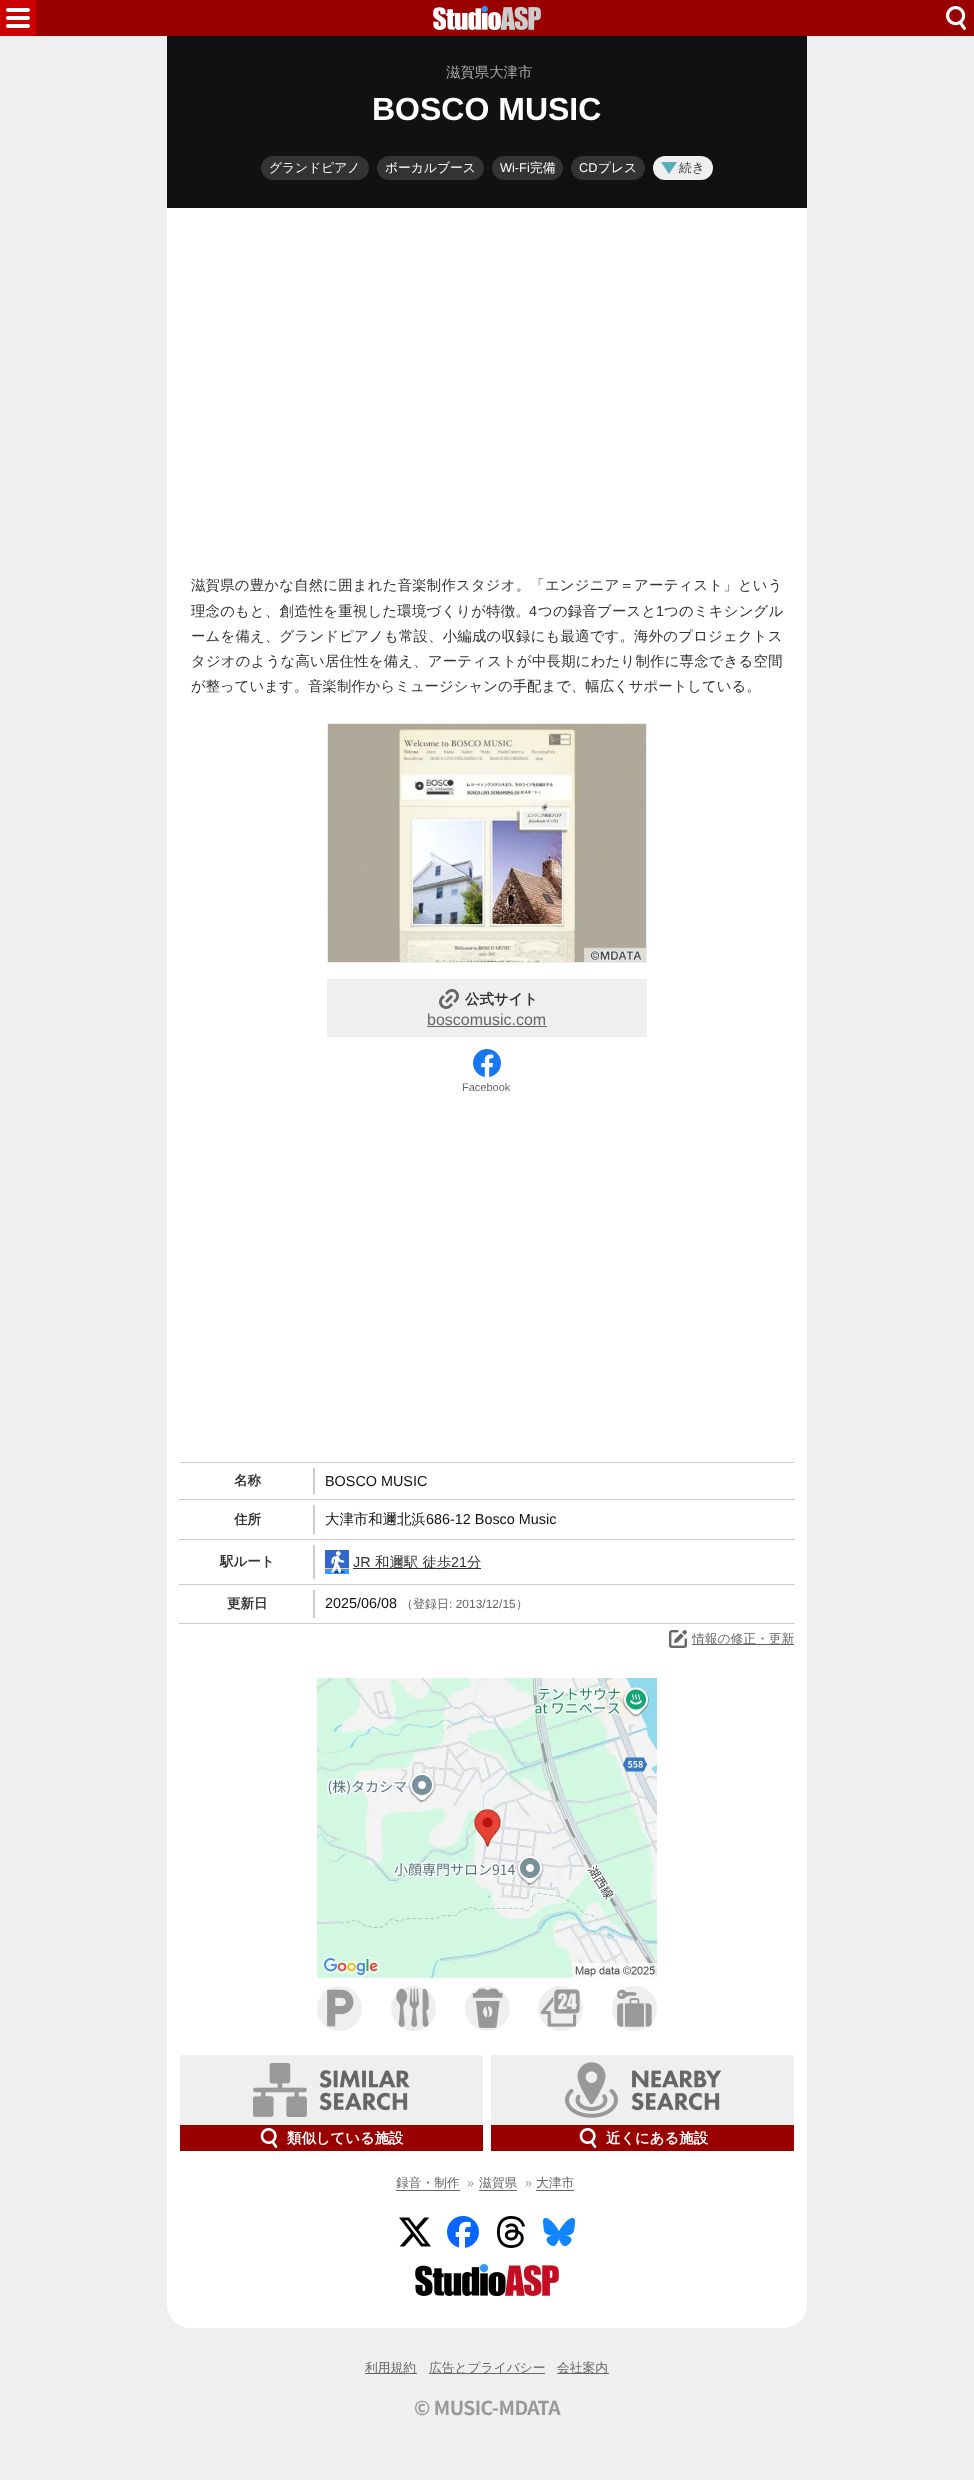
<svg xmlns="http://www.w3.org/2000/svg" width="974" height="2480" viewBox="0 0 974 2480">
  <rect width="100%" height="100%" fill="#efefef"/>
  <rect x="36" y="0" width="938" height="36" fill="#990000"/>
  <rect x="0" y="0" width="36" height="36" fill="#cc0000"/>
  <image x="6" y="8" width="24" height="20" href="img1.png"/>
  <image x="433" y="6" width="108" height="24" href="img2.png"/>
  <image x="946" y="6" width="20" height="24" href="img3.png"/>
  <path d="M167 36H807V2304C807 2317.5 796.5 2328 783 2328H191C177.5 2328 167 2317.5 167 2304Z" fill="#ffffff"/>
  <rect x="167" y="36" width="640" height="172" fill="#111111"/>
  <text x="446" y="77" font-family="WenQuanYi Zen Hei" font-size="14.4" font-weight="500" fill="#aaaaaa">滋賀県大津市</text>
  <text x="372" y="120" font-family="Liberation Sans" font-size="32" font-weight="bold" fill="#ffffff">BOSCO MUSIC</text>
  <rect x="261" y="156" width="108" height="24" rx="12" fill="#333333"/>
  <text x="269" y="172" font-family="WenQuanYi Zen Hei" font-size="12.75" font-weight="500" fill="#ffffff">グランドピアノ</text>
  <rect x="377" y="156" width="107" height="24" rx="12" fill="#333333"/>
  <text x="385" y="172" font-family="WenQuanYi Zen Hei" font-size="12.75" font-weight="500" fill="#ffffff">ボーカルブース</text>
  <rect x="492" y="156" width="71" height="24" rx="12" fill="#333333"/>
  <text x="500" y="172" font-family="Liberation Sans" font-size="12.75" fill="#ffffff">Wi-Fi</text>
  <text x="530" y="172" font-family="WenQuanYi Zen Hei" font-size="12.75" font-weight="500" fill="#ffffff">完備</text>
  <rect x="571" y="156" width="74" height="24" rx="12" fill="#333333"/>
  <text x="579" y="172" font-family="Liberation Sans" font-size="12.75" fill="#ffffff">CD</text>
  <text x="598" y="172" font-family="WenQuanYi Zen Hei" font-size="12.75" font-weight="500" fill="#ffffff">プレス</text>
  <rect x="653" y="156" width="60" height="24" rx="12" fill="#efefef"/>
  <path d="M669 174L677 162H661Z" fill="#56adbe"/>
  <text x="679" y="172" font-family="WenQuanYi Zen Hei" font-size="12.75" font-weight="500" fill="#333333">続き</text>
  <text x="191" y="590" font-family="WenQuanYi Zen Hei" font-size="14.4" font-weight="500" letter-spacing="0.2" fill="#333333">滋賀県の豊かな自然に囲まれた音楽制作スタジオ。「エンジニア＝アーティスト」という</text>
  <text x="191" y="616" font-family="WenQuanYi Zen Hei" font-size="14.4" font-weight="500" letter-spacing="0.2" fill="#333333">理念のもと、創造性を重視した環境づくりが特徴。</text>
  <text x="529" y="616" font-family="Liberation Sans" font-size="14.4" letter-spacing="0.2" fill="#333333">4</text>
  <text x="538" y="616" font-family="WenQuanYi Zen Hei" font-size="14.4" font-weight="500" letter-spacing="0.2" fill="#333333">つの録音ブースと</text>
  <text x="656" y="616" font-family="Liberation Sans" font-size="14.4" letter-spacing="0.2" fill="#333333">1</text>
  <text x="664" y="616" font-family="WenQuanYi Zen Hei" font-size="14.4" font-weight="500" letter-spacing="0.2" fill="#333333">つのミキシングル</text>
  <text x="191" y="641" font-family="WenQuanYi Zen Hei" font-size="14.4" font-weight="500" letter-spacing="0.2" fill="#333333">ームを備え、グランドピアノも常設、小編成の収録にも最適です。海外のプロジェクトス</text>
  <text x="191" y="666" font-family="WenQuanYi Zen Hei" font-size="14.4" font-weight="500" letter-spacing="0.2" fill="#333333">タジオのような高い居住性を備え、アーティストが中長期にわたり制作に専念できる空間</text>
  <text x="191" y="691" font-family="WenQuanYi Zen Hei" font-size="14.4" font-weight="500" fill="#333333">が整っています。音楽制作からミュージシャンの手配まで、幅広くサポートしている。</text>
  <rect x="327.5" y="723.5" width="319" height="239" fill="none" stroke="#efefef"/>
  <image x="328" y="724" width="318" height="238" href="img4.png"/>
  <rect x="327" y="979" width="320" height="58" fill="#efefef"/>
  <image x="439" y="989" width="20" height="20" href="img5.png"/>
  <text x="465" y="1004" font-family="WenQuanYi Zen Hei" font-size="14.4" font-weight="bold" fill="#333333">公式サイト</text>
  <text x="427" y="1025" font-family="Liberation Sans" font-size="16" fill="#666666">boscomusic.com</text>
  <rect x="427" y="1026" width="120" height="1" fill="#666666"/>
  <image x="473" y="1049" width="28" height="28" href="img6.png"/>
  <text x="462" y="1091" font-family="Liberation Sans" font-size="11" fill="#666666">Facebook</text>
  <rect x="180" y="1462" width="614" height="1" fill="#cccccc"/>
  <text x="234" y="1485" font-family="WenQuanYi Zen Hei" font-size="13.5" font-weight="bold" fill="#333333">名称</text>
  <rect x="313" y="1468" width="2" height="26" fill="#cccccc"/>
  <rect x="179" y="1499" width="616" height="1" fill="#cccccc"/>
  <text x="325" y="1486" font-family="Liberation Sans" font-size="14.4" fill="#111111">BOSCO MUSIC</text>
  <text x="234" y="1524" font-family="WenQuanYi Zen Hei" font-size="13.5" font-weight="bold" fill="#333333">住所</text>
  <rect x="313" y="1505" width="2" height="29" fill="#cccccc"/>
  <rect x="179" y="1539" width="616" height="1" fill="#cccccc"/>
  <text x="325" y="1524" font-family="WenQuanYi Zen Hei" font-size="14.4" font-weight="500" fill="#111111">大津市和邇北浜</text>
  <text x="426" y="1524" font-family="Liberation Sans" font-size="14.4" fill="#111111">686-12 Bosco Music</text>
  <text x="220" y="1566" font-family="WenQuanYi Zen Hei" font-size="13.5" font-weight="bold" fill="#333333">駅ルート</text>
  <rect x="313" y="1545" width="2" height="34" fill="#cccccc"/>
  <rect x="179" y="1584" width="616" height="1" fill="#cccccc"/>
  <image x="325" y="1550" width="24" height="24" href="img7.png"/>
  <text x="353" y="1567" font-family="Liberation Sans" font-size="14.4" fill="#333333">JR</text>
  <rect x="353" y="1568" width="128" height="1" fill="#333333"/>
  <text x="375" y="1567" font-family="WenQuanYi Zen Hei" font-size="14.4" font-weight="500" fill="#333333">和邇駅 徒歩</text>
  <text x="451" y="1567" font-family="Liberation Sans" font-size="14.4" fill="#333333">21</text>
  <text x="467" y="1567" font-family="WenQuanYi Zen Hei" font-size="14.4" font-weight="500" fill="#333333">分</text>
  <text x="227" y="1608" font-family="WenQuanYi Zen Hei" font-size="13.5" font-weight="bold" fill="#333333">更新日</text>
  <rect x="313" y="1590" width="2" height="28" fill="#cccccc"/>
  <rect x="179" y="1623" width="616" height="1" fill="#cccccc"/>
  <text x="325" y="1608" font-family="Liberation Sans" font-size="14.4" fill="#111111">2025/06/08</text>
  <text x="401" y="1608" font-family="WenQuanYi Zen Hei" font-size="12" font-weight="500" fill="#666666">（登録日</text>
  <text x="449" y="1608" font-family="Liberation Sans" font-size="12" fill="#666666">: 2013/12/15</text>
  <text x="516" y="1608" font-family="WenQuanYi Zen Hei" font-size="12" font-weight="500" fill="#666666">）</text>
  <image x="669" y="1630" width="18" height="18" href="img8.png"/>
  <rect x="692" y="1644" width="102" height="1" fill="#666666"/>
  <text x="692" y="1643" font-family="WenQuanYi Zen Hei" font-size="12.75" font-weight="500" fill="#666666">情報の修正・更新</text>
  <image x="317" y="1678" width="340" height="300" href="img9.png"/>
  <image x="317" y="1986" width="45" height="45" href="img10.png"/>
  <image x="391" y="1986" width="45" height="45" href="img11.png"/>
  <image x="465" y="1986" width="45" height="45" href="img12.png"/>
  <image x="538" y="1986" width="45" height="45" href="img13.png"/>
  <image x="612" y="1986" width="45" height="45" href="img14.png"/>
  <rect x="180" y="2055" width="303" height="96" rx="2" fill="#efefef"/>
  <image x="253" y="2063" width="157" height="54" href="img15.png"/>
  <rect x="180" y="2125" width="303" height="26" fill="#990000"/>
  <image x="260" y="2128" width="18" height="20" href="img16.png"/>
  <text x="287" y="2143" font-family="WenQuanYi Zen Hei" font-size="14.4" font-weight="bold" fill="#ffffff">類似している施設</text>
  <rect x="491" y="2055" width="303" height="96" rx="2" fill="#efefef"/>
  <image x="565" y="2062" width="157" height="56" href="img17.png"/>
  <rect x="491" y="2125" width="303" height="26" fill="#990000"/>
  <image x="579" y="2128" width="18" height="20" href="img16.png"/>
  <text x="606" y="2143" font-family="WenQuanYi Zen Hei" font-size="14.4" font-weight="bold" fill="#ffffff">近くにある施設</text>
  <text x="396" y="2187" font-family="WenQuanYi Zen Hei" font-size="12.75" font-weight="500" fill="#666666">録音・制作</text>
  <rect x="396" y="2190" width="64" height="1" fill="#666666"/>
  <text x="467" y="2187" font-family="Liberation Sans" font-size="12.75" fill="#999999">»</text>
  <text x="479" y="2187" font-family="WenQuanYi Zen Hei" font-size="12.75" font-weight="500" fill="#666666">滋賀県</text>
  <rect x="479" y="2190" width="38" height="1" fill="#666666"/>
  <text x="525" y="2187" font-family="Liberation Sans" font-size="12.75" fill="#999999">»</text>
  <text x="536" y="2187" font-family="WenQuanYi Zen Hei" font-size="12.75" font-weight="500" fill="#666666">大津市</text>
  <rect x="536" y="2190" width="38" height="1" fill="#666666"/>
  <image x="399" y="2217" width="32" height="30" href="img18.png"/>
  <image x="447" y="2216" width="32" height="32" href="img19.png"/>
  <image x="497" y="2216" width="28" height="32" href="img20.png"/>
  <image x="543" y="2217" width="32" height="30" href="img21.png"/>
  <image x="415" y="2264" width="144" height="32" href="img22.png"/>
  <rect x="365" y="2373" width="52" height="1" fill="#666666"/>
  <text x="365" y="2372" font-family="WenQuanYi Zen Hei" font-size="12.75" font-weight="500" fill="#666666">利用規約</text>
  <rect x="429" y="2373" width="116" height="1" fill="#666666"/>
  <text x="429" y="2372" font-family="WenQuanYi Zen Hei" font-size="12.75" font-weight="500" fill="#666666">広告とプライバシー</text>
  <rect x="557" y="2373" width="52" height="1" fill="#666666"/>
  <text x="557" y="2372" font-family="WenQuanYi Zen Hei" font-size="12.75" font-weight="500" fill="#666666">会社案内</text>
  <text x="414" y="2415" font-family="Noto Sans JP" font-size="19.25" font-weight="bold" letter-spacing="-0.5" fill="#999999">© MUSIC-MDATA</text>
</svg>
